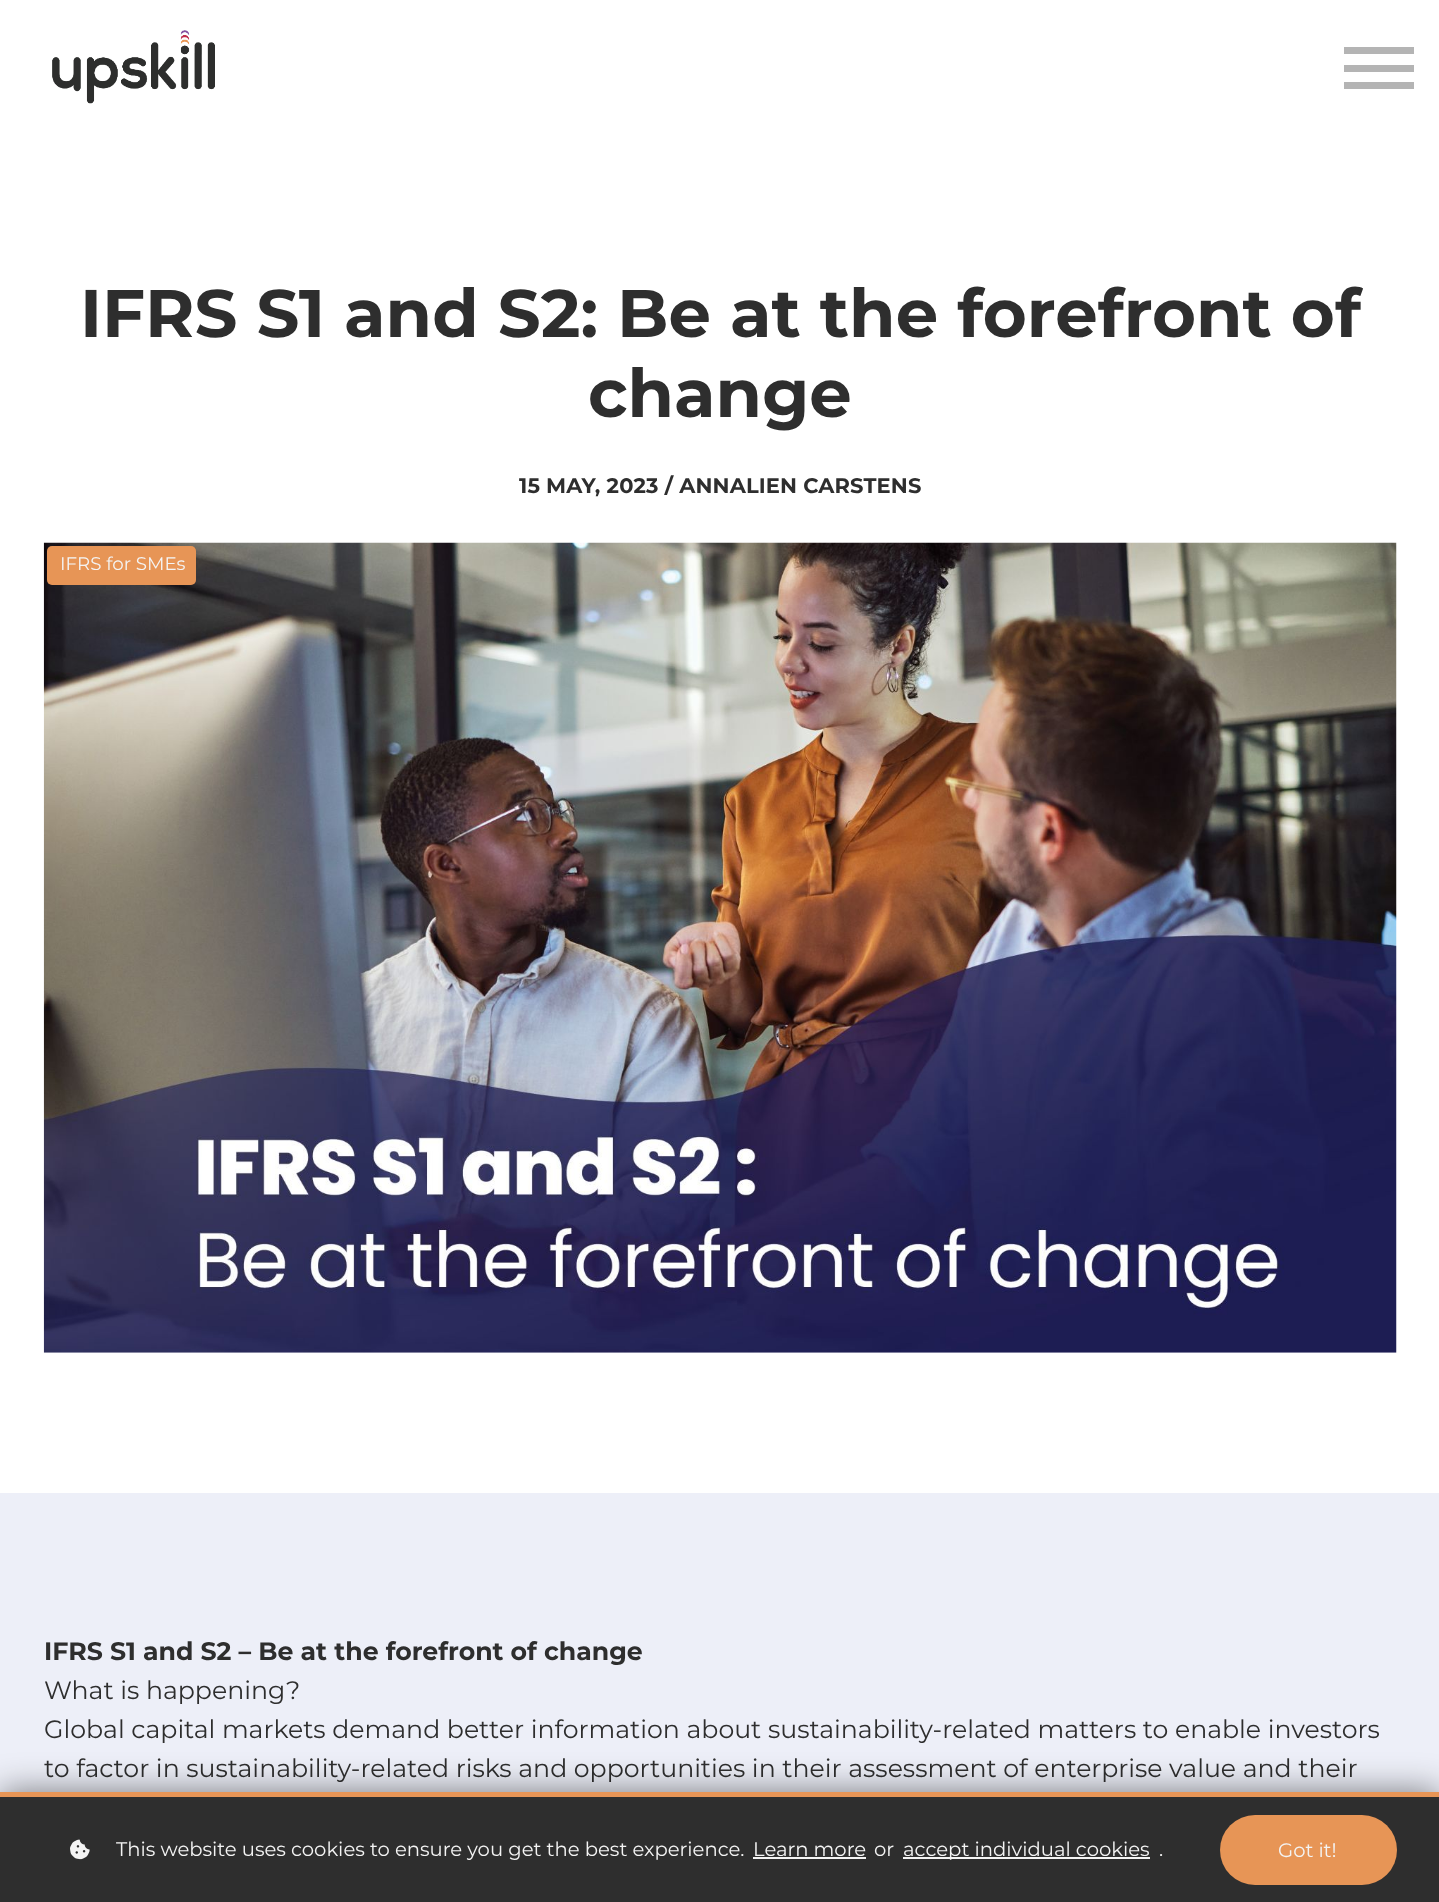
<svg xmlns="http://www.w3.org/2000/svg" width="1439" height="1902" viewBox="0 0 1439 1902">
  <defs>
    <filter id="blur1" x="-50%" y="-200%" width="200%" height="500%"><feGaussianBlur stdDeviation="17.5"/></filter>
  </defs>
  <rect width="100%" height="100%" fill="#ffffff"/>
  <image x="52" y="30" width="163" height="74" href="img1.png"/>
  <rect x="1344" y="82" width="70" height="7" fill="#b4b4b4"/>
  <rect x="1344" y="47" width="70" height="7" fill="#b4b4b4"/>
  <rect x="1344" y="65" width="70" height="7" fill="#b4b4b4"/>
  <text x="80" y="337" font-family="Montserrat" font-size="67.25" font-weight="bold" fill="#2e2e2e">IFRS S1 and S2: Be at the forefront of</text>
  <text x="588" y="417" font-family="Montserrat" font-size="67.25" font-weight="bold" fill="#2e2e2e">change</text>
  <text x="519" y="493" font-family="Montserrat" font-size="21" font-weight="bold" letter-spacing="0.15" fill="#2e2e2e">15 MAY, 2023 / ANNALIEN CARSTENS</text>
  <image x="43" y="542" width="1354" height="811" href="img2.png"/>
  <rect x="47" y="546" width="149" height="39" rx="5" fill="#e79556"/>
  <text x="60" y="570" font-family="Montserrat" font-size="18.25" fill="#f4f4f4">IFRS for SMEs</text>
  <rect x="0" y="1493" width="1439" height="299" fill="#edeff8"/>
  <text x="44" y="1660" font-family="Montserrat" font-size="25.2" font-weight="bold" fill="#2e2e2e">IFRS S1 and S2 – Be at the forefront of change</text>
  <text x="44" y="1699" font-family="Montserrat" font-size="25.2" fill="#2e2e2e">What is happening?</text>
  <text x="44" y="1738" font-family="Montserrat" font-size="25.2" fill="#2e2e2e">Global capital markets demand better information about sustainability-related matters to enable investors</text>
  <text x="44" y="1777" font-family="Montserrat" font-size="25.2" fill="#2e2e2e">to factor in sustainability-related risks and opportunities in their assessment of enterprise value and their</text>
  <rect x="0" y="1792" width="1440" height="110" fill="#000000" fill-opacity="0.5" filter="url(#blur1)"/>
  <rect x="0" y="1797" width="1439" height="105" fill="#2e2e2e"/>
  <rect x="0" y="1792" width="1439" height="5" fill="#e79556"/>
  <image x="70" y="1839" width="20" height="21" href="img3.png"/>
  <text x="116" y="1856" font-family="Montserrat" font-size="19.6" fill="#f4f4f4">This website uses cookies to ensure you get the best experience.</text>
  <text x="753" y="1856" font-family="Montserrat" font-size="19.6" fill="#f4f4f4">Learn more</text>
  <rect x="753" y="1857" width="113" height="2" fill="#f4f4f4"/>
  <text x="874" y="1856" font-family="Montserrat" font-size="19.6" fill="#f4f4f4">or</text>
  <rect x="903" y="1857" width="247" height="2" fill="#f4f4f4"/>
  <text x="903" y="1856" font-family="Montserrat" font-size="19.6" fill="#f4f4f4">accept individual cookies</text>
  <text x="1159" y="1856" font-family="Montserrat" font-size="19.6" fill="#f4f4f4">.</text>
  <rect x="1220" y="1815" width="177" height="70" rx="35" fill="#e79556"/>
  <text x="1278" y="1857" font-family="Montserrat" font-size="19.6" fill="#f4f4f4">Got it!</text>
</svg>
